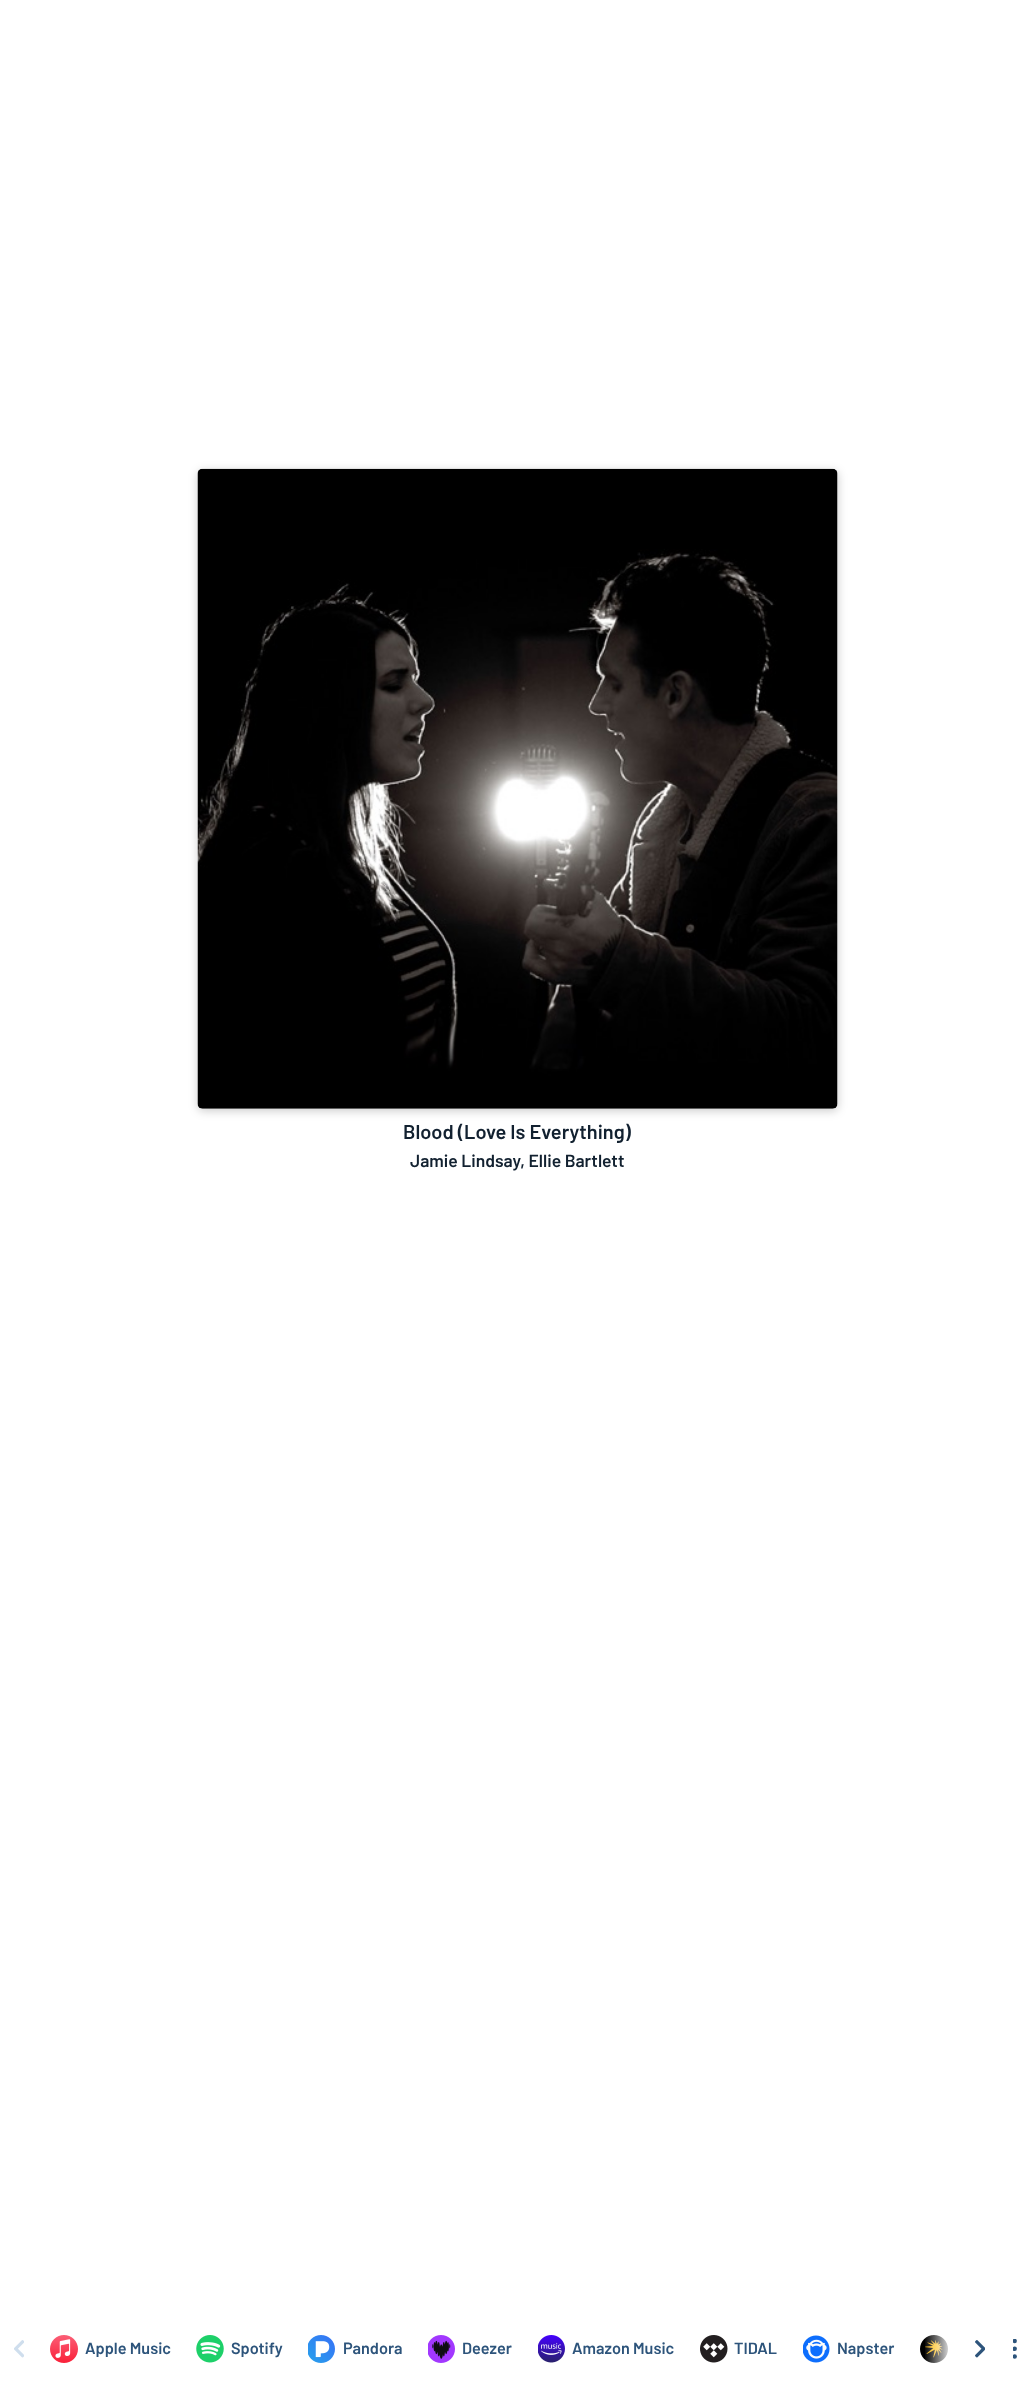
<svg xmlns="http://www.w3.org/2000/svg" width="1033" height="2381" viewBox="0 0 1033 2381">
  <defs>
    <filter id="blur1" x="-50%" y="-200%" width="200%" height="500%"><feGaussianBlur stdDeviation="5"/></filter>
    <linearGradient id="g1" gradientUnits="userSpaceOnUse" x1="961" y1="2349" x2="924" y2="2349"><stop offset="0.2" stop-color="#ffffff"/><stop offset="1" stop-color="#ffffff" stop-opacity="0"/></linearGradient>
    <clipPath id="clip1"><rect x="1013" y="2339" width="5" height="20"/></clipPath>
  </defs>
  <rect width="100%" height="100%" fill="#ffffff"/>
  <rect x="198" y="471" width="640" height="640" rx="5" fill="#000000" fill-opacity="0.2" filter="url(#blur1)"/>
  <image x="197" y="468" width="641" height="641" href="img1.png"/>
  <text x="403" y="1139" font-family="Barlow" font-size="20" font-weight="600" fill="#122130">Blood (Love Is Everything)</text>
  <text x="410" y="1167" font-family="Barlow" font-size="17.5" font-weight="600" fill="#122130">Jamie Lindsay, Ellie Bartlett</text>
  <image x="14" y="2340" width="10" height="18" href="img2.png"/>
  <image x="50" y="2335" width="28" height="28" href="img3.png"/>
  <text x="85" y="2354" font-family="Barlow" font-size="16.25" font-weight="600" fill="#2d547b">Apple Music</text>
  <image x="196" y="2335" width="28" height="28" href="img4.png"/>
  <text x="231" y="2354" font-family="Barlow" font-size="16.25" font-weight="600" fill="#2d547b">Spotify</text>
  <image x="308" y="2335" width="27" height="28" href="img5.png"/>
  <text x="343" y="2354" font-family="Barlow" font-size="16.25" font-weight="600" fill="#2d547b">Pandora</text>
  <image x="428" y="2335" width="27" height="28" href="img6.png"/>
  <text x="462" y="2354" font-family="Barlow" font-size="16.25" font-weight="600" fill="#2d547b">Deezer</text>
  <image x="538" y="2335" width="27" height="28" href="img7.png"/>
  <text x="572" y="2354" font-family="Barlow" font-size="16.25" font-weight="600" fill="#2d547b">Amazon Music</text>
  <image x="700" y="2335" width="28" height="28" href="img8.png"/>
  <text x="734" y="2354" font-family="Barlow" font-size="16.25" font-weight="600" fill="#2d547b">TIDAL</text>
  <image x="803" y="2335" width="27" height="28" href="img9.png"/>
  <text x="837" y="2354" font-family="Barlow" font-size="16.25" font-weight="600" fill="#2d547b">Napster</text>
  <image x="920" y="2335" width="28" height="28" href="img10.png"/>
  <rect x="925" y="2335" width="23" height="28" fill="url(#g1)"/>
  <image x="975" y="2340" width="10" height="18" href="img11.png"/>
  <g clip-path="url(#clip1)">
    <circle cx="1014.7" cy="2356.5" r="2.2" fill="#2d547b"/>
    <circle cx="1014.7" cy="2348.8" r="2.2" fill="#2d547b"/>
    <circle cx="1014.7" cy="2341" r="2.2" fill="#2d547b"/>
  </g>
</svg>
